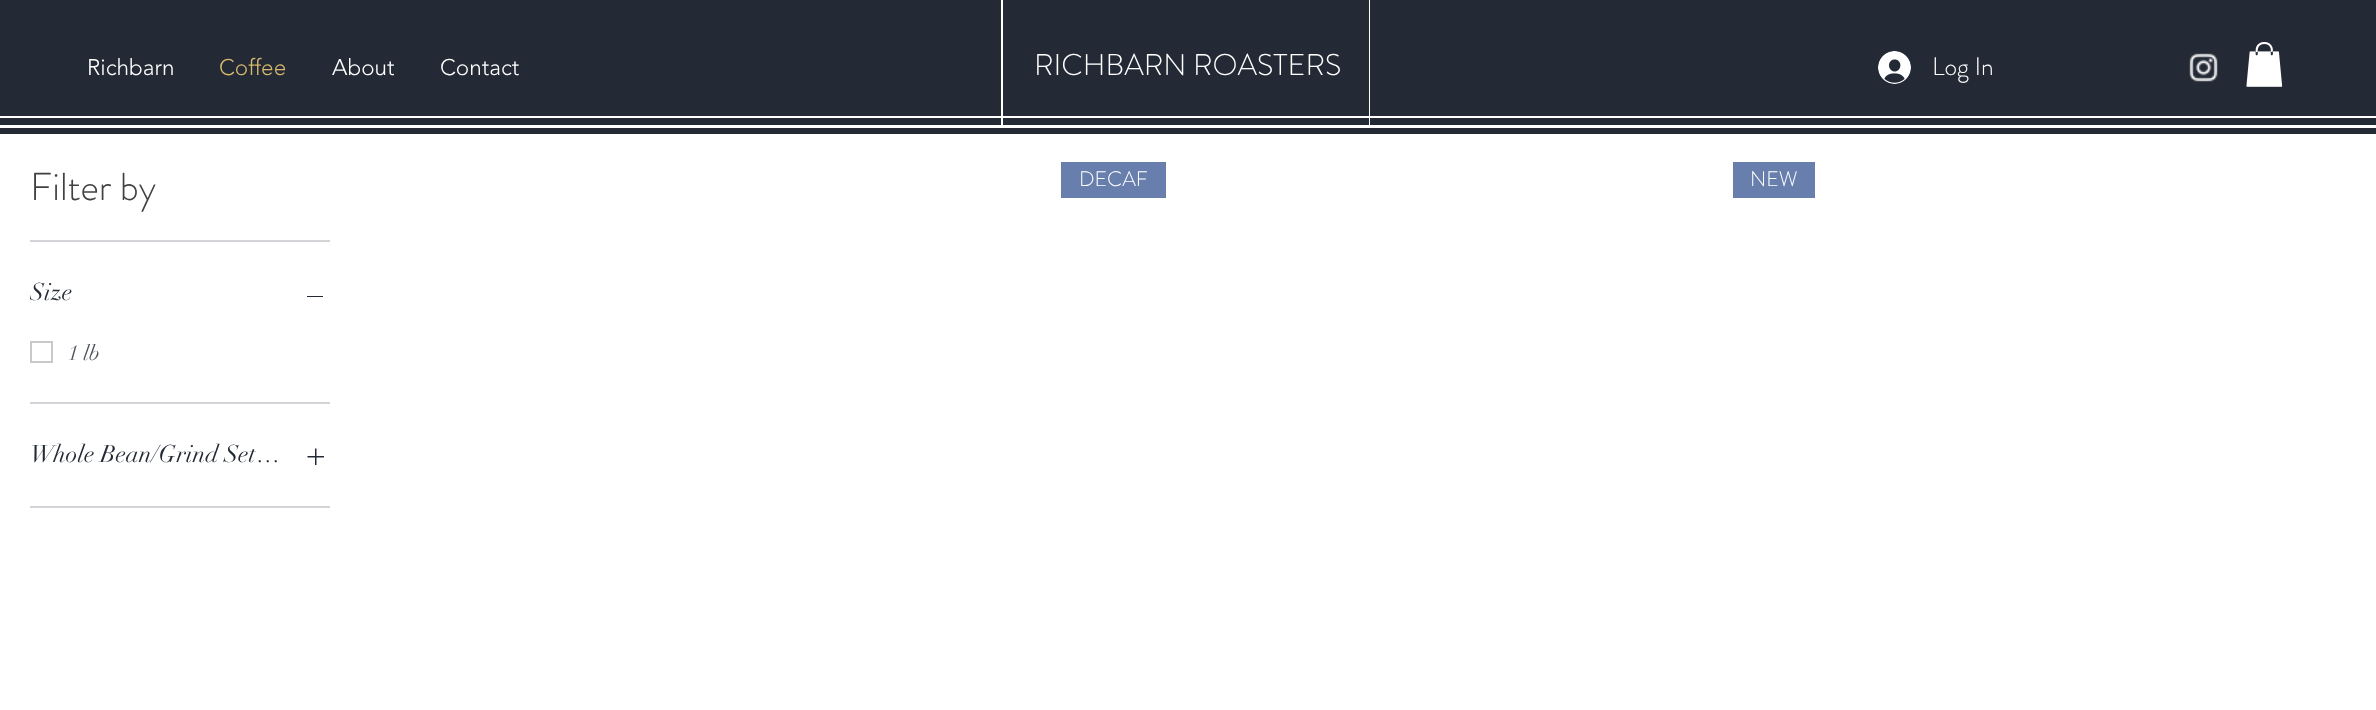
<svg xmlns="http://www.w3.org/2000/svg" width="2376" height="710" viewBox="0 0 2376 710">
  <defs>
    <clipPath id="clip1"><rect x="30" y="272" width="42" height="42"/></clipPath>
  </defs>
  <rect width="100%" height="100%" fill="#242a35"/>
  <text x="87" y="75" font-family="'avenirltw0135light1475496'" font-size="22.5" font-weight="300" fill="#ffffff">Richbarn</text>
  <text x="219" y="75" font-family="'avenirltw0135light1475496'" font-size="22.5" font-weight="300" fill="#d6b86e">Coffee</text>
  <text x="332" y="75" font-family="'avenirltw0135light1475496'" font-size="22.5" font-weight="300" fill="#ffffff">About</text>
  <text x="440" y="75" font-family="'avenirltw0135light1475496'" font-size="22.5" font-weight="300" fill="#ffffff">Contact</text>
  <rect x="1001" y="0" width="2" height="128" fill="#ffffff"/>
  <text x="1034" y="75" font-family="'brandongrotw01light'" font-size="30" font-weight="300" fill="#ffffff">RICHBARN ROASTERS</text>
  <rect x="1369" y="0" width="1" height="128" fill="#ffffff"/>
  <rect x="0" y="116" width="2376" height="2" fill="#ffffff"/>
  <rect x="0" y="125" width="2376" height="3" fill="#ffffff"/>
  <image x="1878" y="51" width="33" height="33" href="img1.png"/>
  <text x="1932" y="75" font-family="'brandongrotw01light'" font-size="25.5" font-weight="300" fill="#ffffff">Log In</text>
  <image x="2189" y="53" width="29" height="29" href="img2.png"/>
  <image x="2246" y="42" width="37" height="45" href="img3.png"/>
  <rect x="0" y="134" width="2376" height="576" fill="#ffffff"/>
  <rect x="30" y="240" width="300" height="2" fill="#d3d4d7"/>
  <text x="30" y="200" font-family="'brandongrotw01light'" font-size="39" font-weight="300" fill="#414141">Filter by</text>
  <rect x="30" y="402" width="300" height="2" fill="#d3d4d7"/>
  <g clip-path="url(#clip1)">
    <text x="30" y="300" font-family="didot" font-size="24" fill="#242a35">Size</text>
  </g>
  <rect x="307" y="296" width="16" height="1" fill="#242a35"/>
  <rect x="31" y="342" width="21" height="20" fill="none" stroke="#c9c9c9" stroke-width="2"/>
  <text x="68" y="360" font-family="didot" font-size="21" fill="#50555d">1 lb</text>
  <rect x="30" y="506" width="300" height="2" fill="#d3d4d7"/>
  <text x="30" y="462" font-family="didot" font-size="24" fill="#242a35">Whole Bean/Grind Set…</text>
  <image x="307" y="448" width="17" height="17" href="img4.png"/>
  <rect x="1061" y="162" width="105" height="36" fill="#687fad"/>
  <text x="1079" y="186" font-family="'brandongrotw01light'" font-size="21" font-weight="300" fill="#ffffff">DECAF</text>
  <rect x="1733" y="162" width="82" height="36" fill="#687fad"/>
  <text x="1750" y="186" font-family="'brandongrotw01light'" font-size="21" font-weight="300" fill="#ffffff">NEW</text>
</svg>
